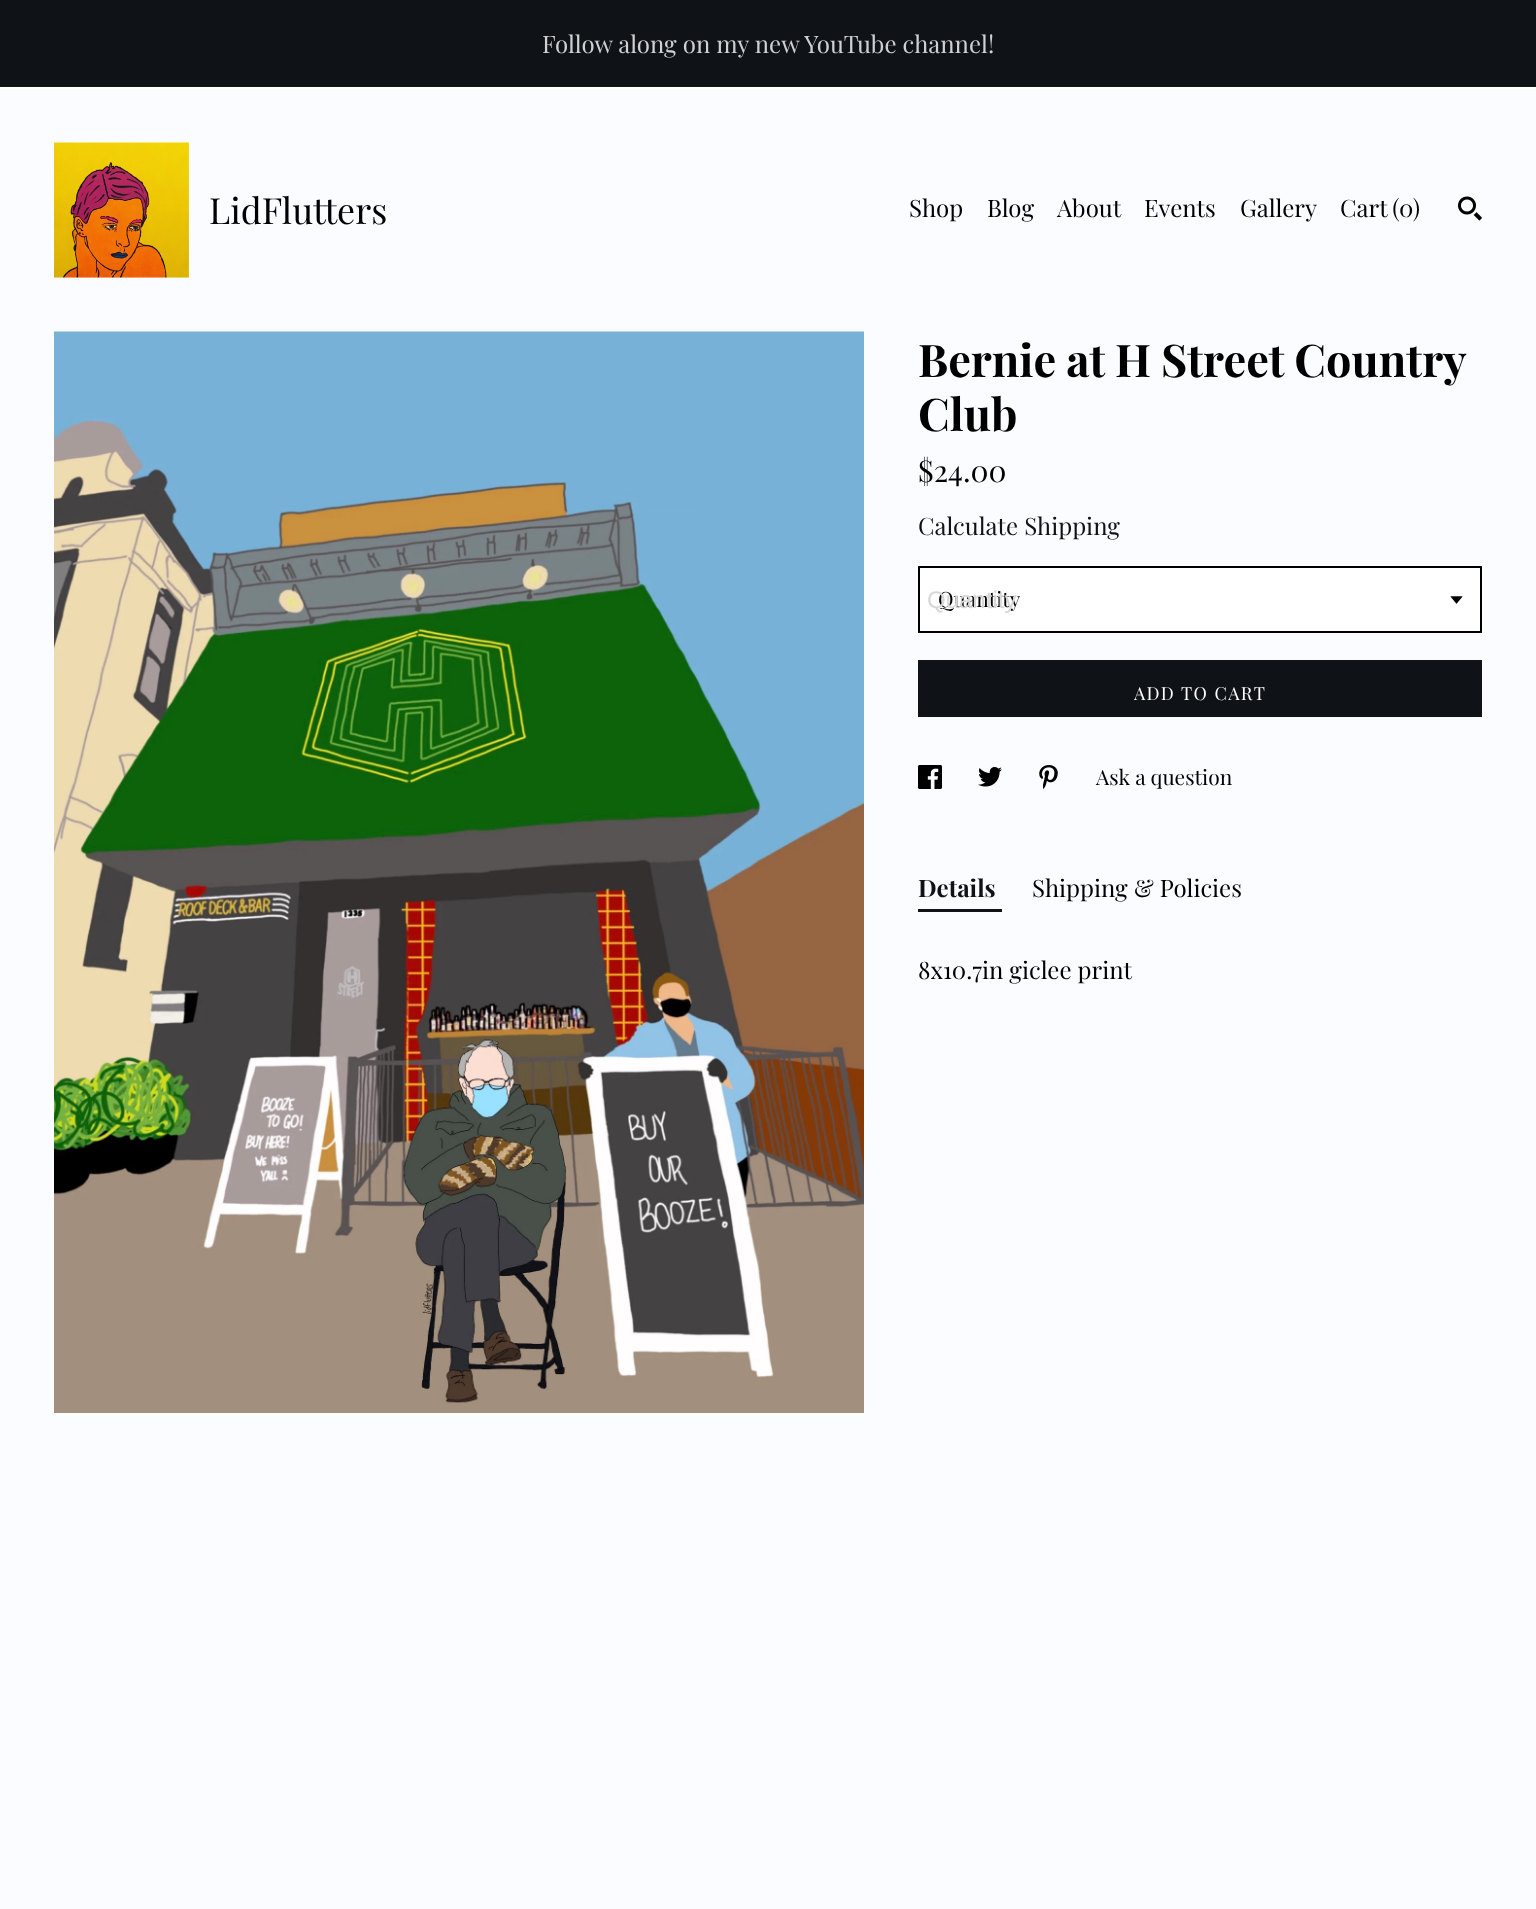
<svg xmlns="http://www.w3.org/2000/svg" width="1536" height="1909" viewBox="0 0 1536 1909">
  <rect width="100%" height="100%" fill="#fafcff"/>
  <rect x="0" y="0" width="1536" height="87" fill="#0f1217"/>
  <rect x="0" y="87" width="1536" height="2" fill="#ffffff"/>
  <text x="542" y="53" font-family="Playfair Display" font-size="24" fill="#cfd0d1">Follow along on my new YouTube channel!</text>
  <image x="54" y="142" width="135" height="136" href="img1.png"/>
  <text x="209" y="224" font-family="Playfair Display" font-size="36" fill="#000000">LidFlutters</text>
  <text x="909" y="217" font-family="Playfair Display" font-size="24" fill="#000000">Shop</text>
  <text x="987" y="217" font-family="Playfair Display" font-size="24" fill="#000000">Blog</text>
  <text x="1057" y="217" font-family="Playfair Display" font-size="24" fill="#000000">About</text>
  <text x="1144" y="217" font-family="Playfair Display" font-size="24" fill="#000000">Events</text>
  <text x="1240" y="217" font-family="Playfair Display" font-size="24" fill="#000000">Gallery</text>
  <text x="1340" y="217" word-spacing="-1" font-family="Playfair Display" font-size="24" fill="#000000">Cart (</text>
  <text x="1399" y="217" font-family="Playfair Display" font-size="24" fill="#000000">0</text>
  <text x="1413" y="217" font-family="Playfair Display" font-size="24" fill="#000000">)</text>
  <image x="1458" y="196" width="24" height="25" href="img2.png"/>
  <image x="54" y="331" width="810" height="1082" href="img3.png"/>
  <text x="918" y="377" word-spacing="-0.5" font-family="Playfair Display" font-size="45" font-weight="bold" fill="#000000">Bernie at H Street Country</text>
  <text x="918" y="431" font-family="Playfair Display" font-size="45" font-weight="bold" fill="#000000">Club</text>
  <text x="918" y="482" font-family="Playfair Display" font-size="30" fill="#000000">$24.00</text>
  <text x="918" y="535" font-family="Playfair Display" font-size="24" fill="#0f1217">Calculate Shipping</text>
  <rect x="919" y="567" width="562" height="65" fill="#ffffff" stroke="#000000" stroke-width="2"/>
  <text x="938" y="607" font-family="Playfair Display" font-size="21" fill="#000000">Quantity</text>
  <text x="927" y="608" font-family="Liberation Sans" font-size="24" fill="#d7d7d7">Quantity</text>
  <image x="1450" y="596" width="13" height="8" href="img4.png"/>
  <rect x="918" y="660" width="564" height="57" fill="#0f1217"/>
  <text x="1134" y="700" font-family="Playfair Display" font-size="18" letter-spacing="1.5" fill="#ffffff">ADD TO CART</text>
  <image x="918" y="765" width="24" height="24" href="img5.png"/>
  <image x="978" y="767" width="24" height="20" href="img6.png"/>
  <image x="1039" y="765" width="19" height="24" href="img7.png"/>
  <text x="1096" y="785" font-family="Playfair Display" font-size="21" fill="#000000">Ask a question</text>
  <text x="918" y="897" font-family="Playfair Display" font-size="24" font-weight="bold" fill="#0f1217">Details</text>
  <rect x="918" y="909" width="84" height="3" fill="#0f1217"/>
  <text x="1032" y="897" font-family="Playfair Display" font-size="24" fill="#000000">Shipping &amp; Policies</text>
  <text x="918" y="979" font-family="Playfair Display" font-size="24" fill="#000000">8x10.7in giclee print</text>
</svg>
